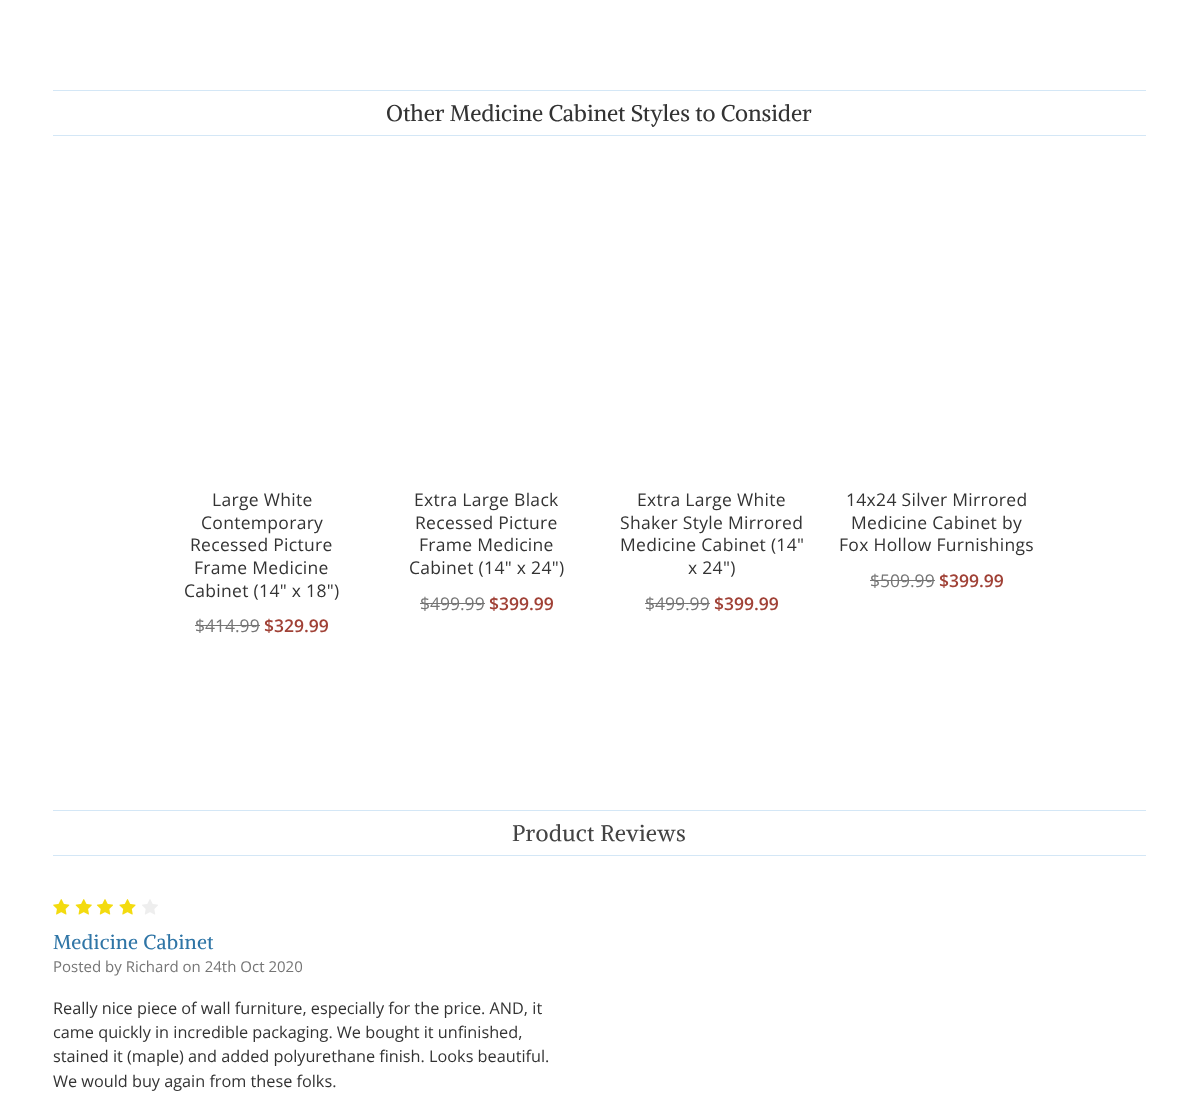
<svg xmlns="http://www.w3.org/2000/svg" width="1198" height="1108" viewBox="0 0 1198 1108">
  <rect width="100%" height="100%" fill="#ffffff"/>
  <rect x="53" y="90" width="1093" height="1" fill="#d4e7f6"/>
  <rect x="53" y="135" width="1093" height="1" fill="#d4e7f6"/>
  <text x="386" y="121" font-family="Alike" font-size="22.5" fill="#333333">Other Medicine Cabinet Styles to Consider</text>
  <text x="212" y="506" font-family="Open Sans" font-size="17.5" letter-spacing="0.3" fill="#333333">Large White</text>
  <text x="201" y="529" font-family="Open Sans" font-size="17.5" letter-spacing="0.3" fill="#333333">Contemporary</text>
  <text x="190" y="551" font-family="Open Sans" font-size="17.5" letter-spacing="0.3" fill="#333333">Recessed Picture</text>
  <text x="194" y="574" font-family="Open Sans" font-size="17.5" letter-spacing="0.3" fill="#333333">Frame Medicine</text>
  <text x="184" y="597" font-family="Open Sans" font-size="17.5" letter-spacing="0.3" fill="#333333">Cabinet (14" x 18")</text>
  <text x="195" y="632" font-family="Open Sans" font-size="17.5" fill="#757575">$414.99</text>
  <rect x="195" y="625" width="65" height="1" fill="#757575"/>
  <text x="264" y="632" font-family="Open Sans" font-size="17.5" font-weight="600" fill="#a04136">$329.99</text>
  <text x="414" y="506" font-family="Open Sans" font-size="17.5" letter-spacing="0.3" fill="#333333">Extra Large Black</text>
  <text x="415" y="529" font-family="Open Sans" font-size="17.5" letter-spacing="0.3" fill="#333333">Recessed Picture</text>
  <text x="419" y="551" font-family="Open Sans" font-size="17.5" letter-spacing="0.3" fill="#333333">Frame Medicine</text>
  <text x="409" y="574" font-family="Open Sans" font-size="17.5" letter-spacing="0.3" fill="#333333">Cabinet (14" x 24")</text>
  <text x="420" y="610" font-family="Open Sans" font-size="17.5" fill="#757575">$499.99</text>
  <rect x="420" y="603" width="65" height="1" fill="#757575"/>
  <text x="489" y="610" font-family="Open Sans" font-size="17.5" font-weight="600" fill="#a04136">$399.99</text>
  <text x="637" y="506" font-family="Open Sans" font-size="17.5" letter-spacing="0.3" fill="#333333">Extra Large White</text>
  <text x="620" y="529" font-family="Open Sans" font-size="17.5" letter-spacing="0.3" fill="#333333">Shaker Style Mirrored</text>
  <text x="620" y="551" font-family="Open Sans" font-size="17.5" letter-spacing="0.3" fill="#333333">Medicine Cabinet (14"</text>
  <text x="688" y="574" font-family="Open Sans" font-size="17.5" letter-spacing="0.3" fill="#333333">x 24")</text>
  <text x="645" y="610" font-family="Open Sans" font-size="17.5" fill="#757575">$499.99</text>
  <rect x="645" y="603" width="65" height="1" fill="#757575"/>
  <text x="714" y="610" font-family="Open Sans" font-size="17.5" font-weight="600" fill="#a04136">$399.99</text>
  <text x="846" y="506" font-family="Open Sans" font-size="17.5" letter-spacing="0.3" fill="#333333">14x24 Silver Mirrored</text>
  <text x="851" y="529" font-family="Open Sans" font-size="17.5" letter-spacing="0.3" fill="#333333">Medicine Cabinet by</text>
  <text x="839" y="551" font-family="Open Sans" font-size="17.5" letter-spacing="0.3" fill="#333333">Fox Hollow Furnishings</text>
  <text x="870" y="587" font-family="Open Sans" font-size="17.5" fill="#757575">$509.99</text>
  <rect x="870" y="580" width="65" height="1" fill="#757575"/>
  <text x="939" y="587" font-family="Open Sans" font-size="17.5" font-weight="600" fill="#a04136">$399.99</text>
  <rect x="53" y="810" width="1093" height="1" fill="#d4e7f6"/>
  <rect x="53" y="855" width="1093" height="1" fill="#d4e7f6"/>
  <text x="512" y="841" font-family="Alike" font-size="22.5" letter-spacing="0.3" fill="#444444">Product Reviews</text>
  <image x="53" y="899" width="17" height="16" href="img1.png"/>
  <image x="75" y="899" width="17" height="16" href="img2.png"/>
  <image x="96" y="899" width="17" height="16" href="img3.png"/>
  <image x="119" y="899" width="17" height="16" href="img4.png"/>
  <image x="142" y="899" width="16" height="16" href="img5.png"/>
  <text x="53" y="949" font-family="Alike" font-size="20" letter-spacing="0.3" fill="#2f75a6">Medicine Cabinet</text>
  <text x="53" y="972" font-family="Open Sans" font-size="15" fill="#757575">Posted by Richard on 24th Oct 2020</text>
  <text x="53" y="1014" font-family="Open Sans" font-size="16.25" fill="#333333">Really nice piece of wall furniture, especially for the price. AND, it</text>
  <text x="53" y="1038" font-family="Open Sans" font-size="16.25" fill="#333333">came quickly in incredible packaging. We bought it unfinished,</text>
  <text x="53" y="1062" font-family="Open Sans" font-size="16.25" fill="#333333">stained it (maple) and added polyurethane finish. Looks beautiful.</text>
  <text x="53" y="1087" font-family="Open Sans" font-size="16.25" fill="#333333">We would buy again from these folks.</text>
</svg>
